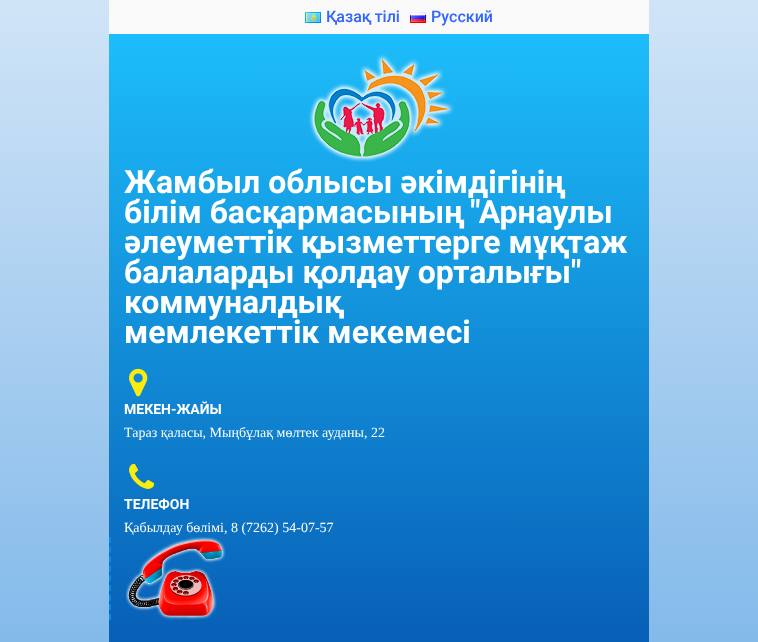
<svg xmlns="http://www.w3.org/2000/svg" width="758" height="642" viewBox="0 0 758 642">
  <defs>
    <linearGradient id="g1" gradientUnits="userSpaceOnUse" x1="379" y1="0" x2="379" y2="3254"><stop offset="0" stop-color="#d0e4f7"/><stop offset="0.24" stop-color="#73b1e7"/><stop offset="0.5" stop-color="#0a77d5"/><stop offset="0.79" stop-color="#539fe1"/><stop offset="1" stop-color="#87bcea"/></linearGradient>
    <linearGradient id="g2" gradientUnits="userSpaceOnUse" x1="379" y1="34" x2="379" y2="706"><stop offset="0" stop-color="#1dbdfb"/><stop offset="1" stop-color="#0555af"/></linearGradient>
  </defs>
  <rect width="100%" height="100%" fill="#ffffff"/>
  <rect x="0" y="0" width="758" height="642" fill="url(#g1)"/>
  <rect x="109" y="0" width="540" height="34" fill="#f9f9f9"/>
  <image x="305" y="12" width="16" height="11" href="img1.png"/>
  <text x="326" y="22" font-family="Roboto" font-size="16" font-weight="500" fill="#3366ff">Қазақ тілі</text>
  <image x="410" y="12" width="16" height="11" href="img2.png"/>
  <text x="431" y="22" font-family="Roboto" font-size="16" font-weight="500" fill="#3366ff">Русский</text>
  <rect x="109" y="34" width="540" height="608" fill="url(#g2)"/>
  <image x="308" y="54" width="146" height="108" href="img3.png"/>
  <text x="124" y="193" font-family="Roboto" font-size="32" font-weight="bold" fill="#ffffff">Жамбыл облысы әкімдігінің</text>
  <text x="124" y="223" font-family="Roboto" font-size="32" font-weight="bold" fill="#ffffff">білім басқармасының "Арнаулы</text>
  <text x="124" y="253" font-family="Roboto" font-size="32" font-weight="bold" fill="#ffffff">әлеуметтік қызметтерге мұқтаж</text>
  <text x="124" y="283" font-family="Roboto" font-size="32" font-weight="bold" fill="#ffffff">балаларды қолдау орталығы"</text>
  <text x="124" y="313" font-family="Roboto" font-size="32" font-weight="bold" fill="#ffffff">коммуналдық</text>
  <text x="124" y="343" font-family="Roboto" font-size="32" font-weight="bold" fill="#ffffff">мемлекеттік мекемесі</text>
  <image x="129" y="368" width="19" height="29" href="img4.png"/>
  <text x="124" y="414" font-family="Roboto" font-size="14" font-weight="bold" fill="#ffffff">МЕКЕН-ЖАЙЫ</text>
  <text x="124" y="437" font-family="Liberation Serif" font-size="14" fill="#ffffff">Тараз қаласы, Мыңбұлақ мөлтек ауданы, 22</text>
  <image x="129" y="463" width="26" height="26" href="img5.png"/>
  <text x="124" y="509" font-family="Roboto" font-size="14" font-weight="bold" fill="#ffffff">ТЕЛЕФОН</text>
  <text x="124" y="532" font-family="Liberation Serif" font-size="14" fill="#ffffff">Қабылдау бөлімі, 8 (7262) 54-07-57</text>
  <path d="M110 537V620" fill="none" stroke="#008af5" stroke-width="2" stroke-dasharray="6 3.62"/>
  <image x="126" y="537" width="100" height="83" href="img6.png"/>
</svg>
